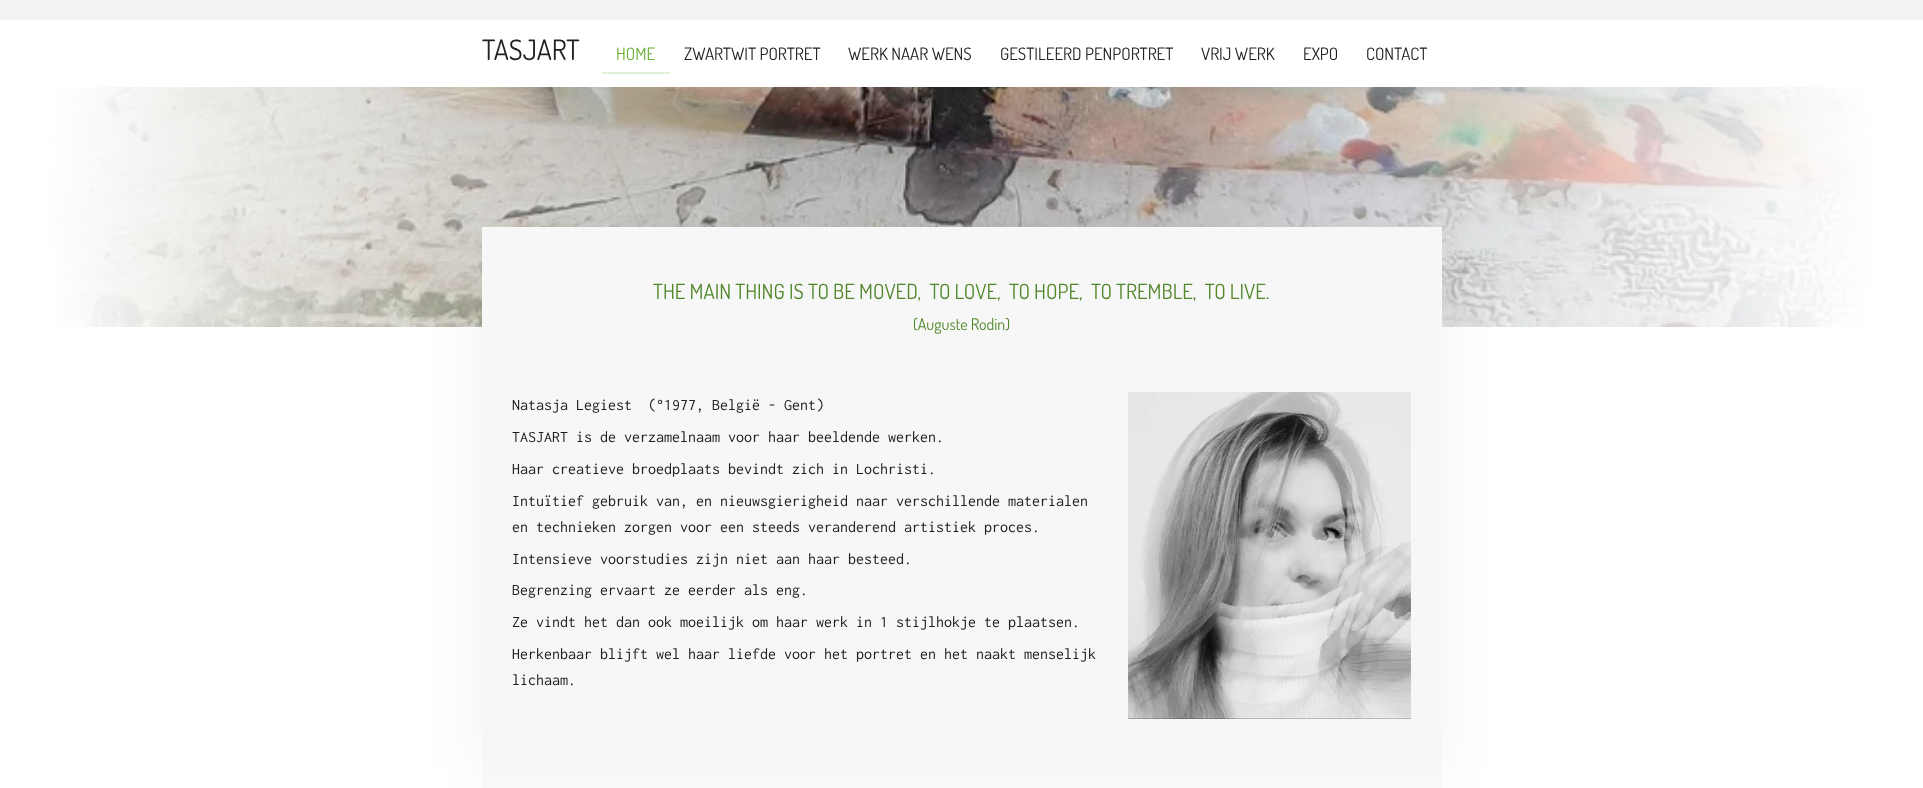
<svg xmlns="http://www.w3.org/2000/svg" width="1923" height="788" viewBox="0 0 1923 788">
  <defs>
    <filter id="blur1" x="-50%" y="-200%" width="200%" height="500%"><feGaussianBlur stdDeviation="30"/></filter>
    <linearGradient id="g1" gradientUnits="userSpaceOnUse" x1="962" y1="762" x2="962" y2="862"><stop offset="0" stop-color="#f7f7f7"/><stop offset="1" stop-color="#ffffff"/></linearGradient>
  </defs>
  <rect width="100%" height="100%" fill="#ffffff"/>
  <rect x="0" y="0" width="1923" height="20" fill="#f2f2f2"/>
  <text x="482" y="60" font-family="Dosis" font-size="28" fill="#202020">TASJART</text>
  <rect x="602" y="72" width="68" height="2" fill="#e1efd6"/>
  <text x="616" y="60" font-family="Dosis" font-size="17" fill="#68ae34">HOME</text>
  <text x="684" y="60" font-family="Dosis" font-size="17" fill="#202020">ZWARTWIT PORTRET</text>
  <text x="848" y="60" font-family="Dosis" font-size="17" fill="#202020">WERK NAAR WENS</text>
  <text x="1000" y="60" font-family="Dosis" font-size="17" fill="#202020">GESTILEERD PENPORTRET</text>
  <text x="1201" y="60" font-family="Dosis" font-size="17" fill="#202020">VRIJ WERK</text>
  <text x="1303" y="60" font-family="Dosis" font-size="17" fill="#202020">EXPO</text>
  <text x="1366" y="60" font-family="Dosis" font-size="17" fill="#202020">CONTACT</text>
  <image x="0" y="87" width="1923" height="240" href="img1.png"/>
  <rect x="482" y="227" width="960" height="545" fill="#000000" fill-opacity="0.05" filter="url(#blur1)"/>
  <rect x="482" y="227" width="960" height="535" fill="#f7f7f7"/>
  <text x="653" y="299" font-family="Dosis" font-size="20.8" fill="#508729" xml:space="preserve">THE MAIN THING IS TO BE MOVED,  TO LOVE,  TO HOPE,  TO TREMBLE,  TO LIVE.</text>
  <text x="913" y="330" font-family="Dosis" font-size="16" fill="#508729">(Auguste Rodin)</text>
  <text x="512" y="410" font-family="Inconsolata" font-size="16" fill="#202020">Natasja Legiest</text>
  <text x="648" y="410" font-family="Inconsolata" font-size="16" fill="#202020">(°1977, België - Gent)</text>
  <text x="512" y="442" font-family="Inconsolata" font-size="16" fill="#202020">TASJART is de verzamelnaam voor haar beeldende werken.</text>
  <text x="512" y="474" font-family="Inconsolata" font-size="16" fill="#202020">Haar creatieve broedplaats bevindt zich in Lochristi.</text>
  <text x="512" y="506" font-family="Inconsolata" font-size="16" fill="#202020">Intuïtief gebruik van, en nieuwsgierigheid naar verschillende materialen</text>
  <text x="512" y="532" font-family="Inconsolata" font-size="16" fill="#202020">en technieken zorgen voor een steeds veranderend artistiek proces.</text>
  <text x="512" y="564" font-family="Inconsolata" font-size="16" fill="#202020">Intensieve voorstudies zijn niet aan haar besteed.</text>
  <text x="512" y="595" font-family="Inconsolata" font-size="16" fill="#202020">Begrenzing ervaart ze eerder als eng.</text>
  <text x="512" y="627" font-family="Inconsolata" font-size="16" fill="#202020">Ze vindt het dan ook moeilijk om haar werk in 1 stijlhokje te plaatsen.</text>
  <text x="512" y="659" font-family="Inconsolata" font-size="16" fill="#202020">Herkenbaar blijft wel haar liefde voor het portret en het naakt menselijk</text>
  <text x="512" y="685" font-family="Inconsolata" font-size="16" fill="#202020">lichaam.</text>
  <image x="1128" y="392" width="283" height="327" href="img2.png"/>
  <rect x="482" y="762" width="960" height="26" fill="url(#g1)"/>
</svg>
